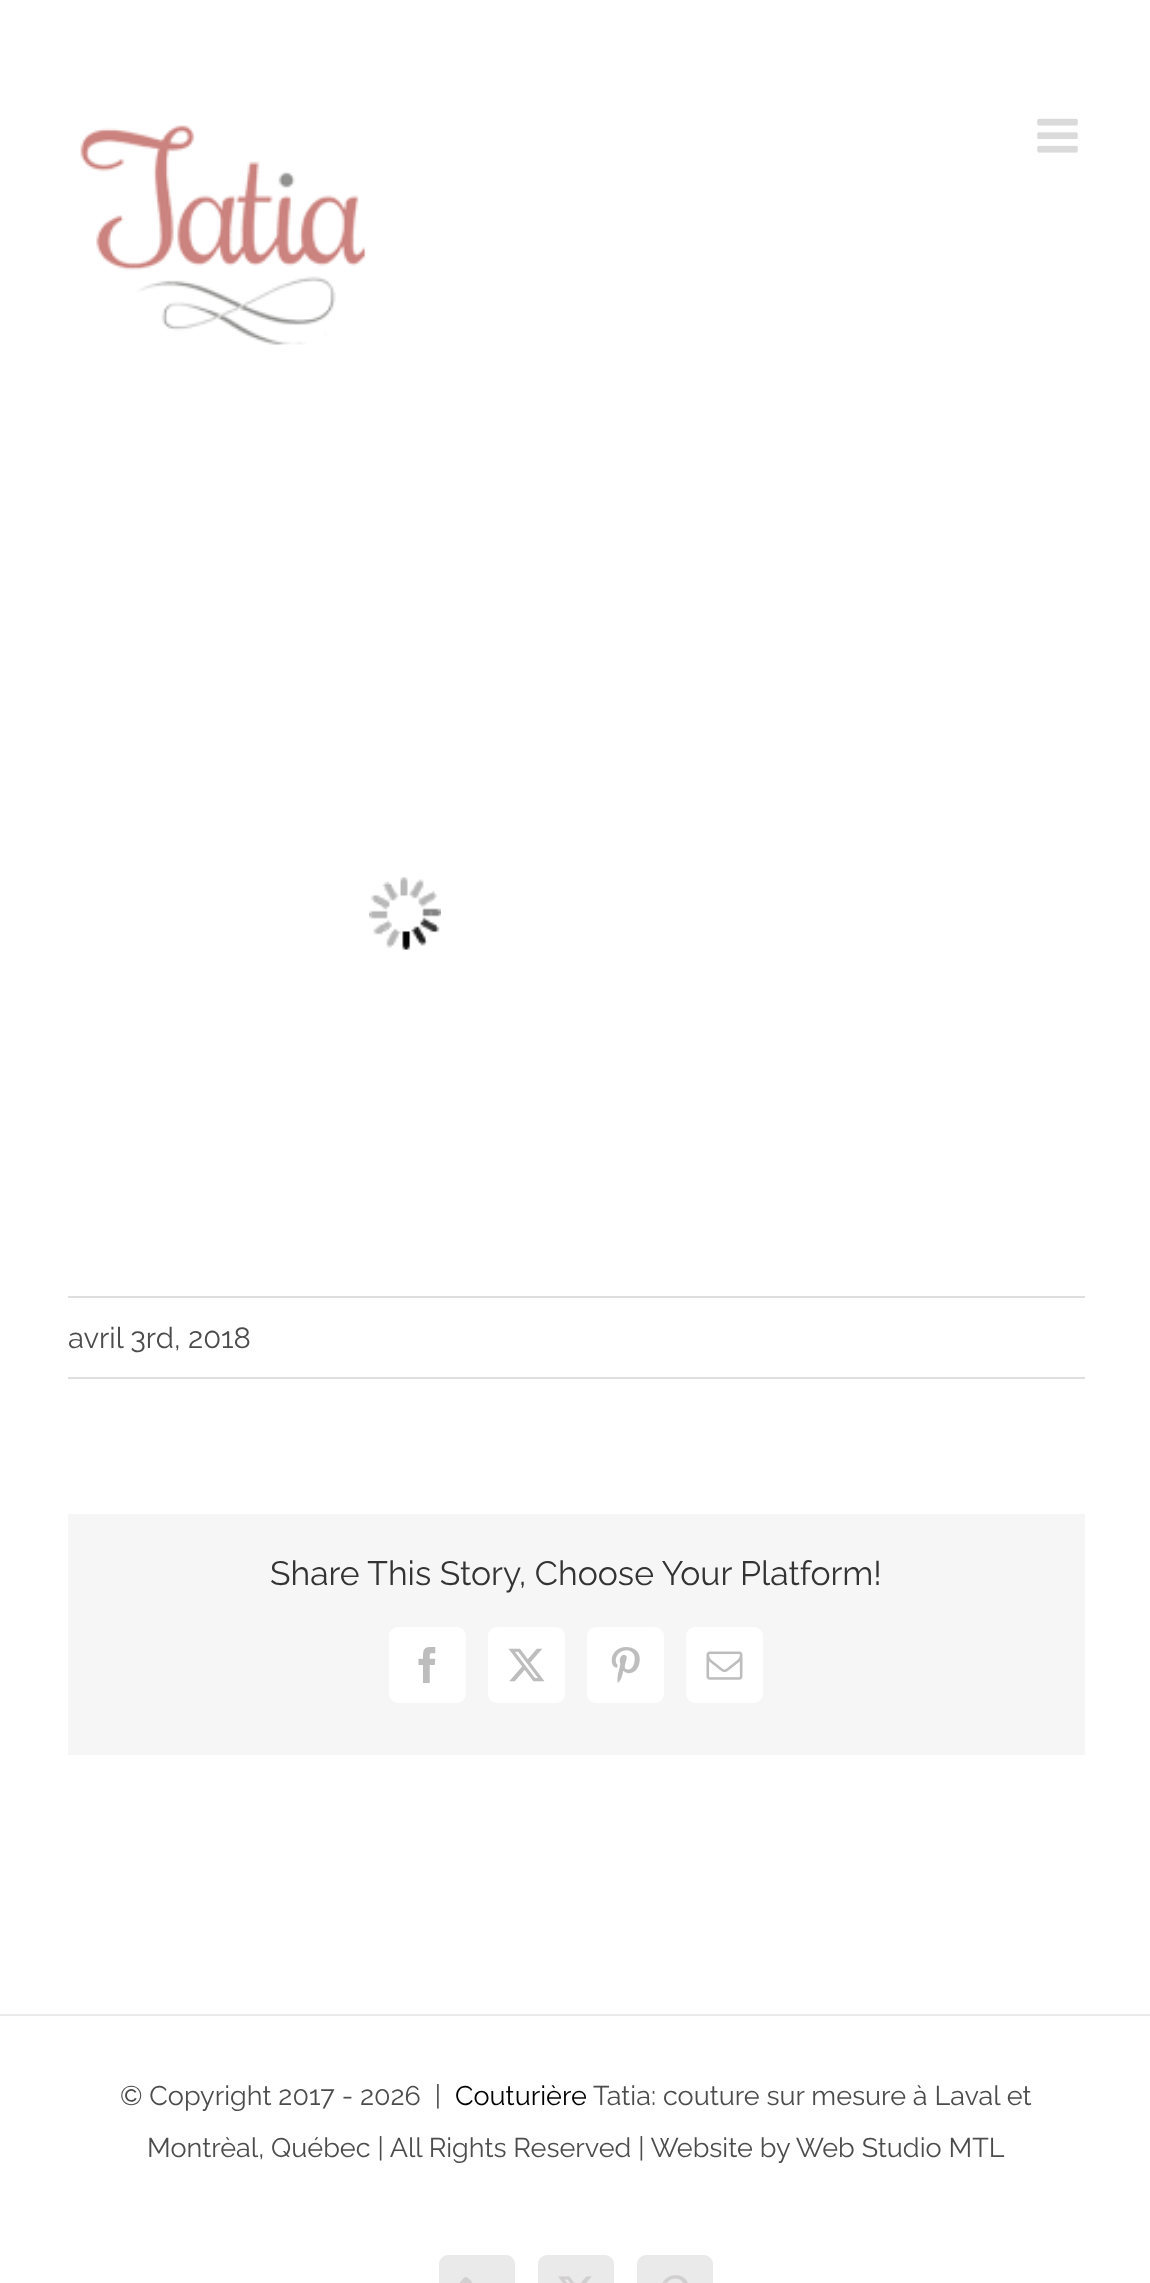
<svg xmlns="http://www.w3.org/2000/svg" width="1150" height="2283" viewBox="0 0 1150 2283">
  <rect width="100%" height="100%" fill="#ffffff"/>
  <image x="80" y="125" width="286" height="220" href="img1.png"/>
  <image x="1037" y="118" width="41" height="35" href="img2.png"/>
  <image x="369" y="877" width="72" height="73" href="img3.png"/>
  <rect x="68" y="1296" width="1017" height="2" fill="#e0dede"/>
  <rect x="68" y="1377" width="1017" height="2" fill="#e0dede"/>
  <text x="68" y="1348" font-family="Raleway" font-size="29.25" fill="#4c4c4c">avril 3rd, 2018</text>
  <rect x="68" y="1514" width="1017" height="241" fill="#f6f6f6"/>
  <text x="270" y="1585" font-family="Raleway" font-size="33.75" fill="#333333">Share This Story, Choose Your Platform!</text>
  <rect x="389" y="1627" width="77" height="76" rx="9" fill="#ffffff"/>
  <image x="418" y="1647" width="18" height="36" href="img4.png"/>
  <rect x="488" y="1627" width="77" height="76" rx="9" fill="#ffffff"/>
  <image x="508" y="1648" width="37" height="34" href="img5.png"/>
  <rect x="587" y="1627" width="77" height="76" rx="9" fill="#ffffff"/>
  <image x="611" y="1647" width="29" height="36" href="img6.png"/>
  <rect x="686" y="1627" width="77" height="76" rx="9" fill="#ffffff"/>
  <image x="706" y="1651" width="37" height="29" href="img7.png"/>
  <rect x="0" y="2014" width="1150" height="2" fill="#eaeaea"/>
  <text x="120" y="2105" font-family="Raleway" font-size="27" fill="#4c4c4c" xml:space="preserve">© Copyright 2017 - 2026  |</text>
  <text x="455" y="2105" font-family="Raleway" font-size="27" fill="#000000">Couturière</text>
  <text x="593" y="2105" font-family="Raleway" font-size="27" fill="#4c4c4c">Tatia: couture sur mesure à Laval et</text>
  <text x="147" y="2157" font-family="Raleway" font-size="27" fill="#4c4c4c">Montrèal, Québec | All Rights Reserved | Website by Web Studio MTL</text>
  <rect x="440" y="2256" width="74" height="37" rx="8" fill="#eaeaea" stroke="#eaeaea" stroke-width="2"/>
  <image x="459" y="2277" width="13" height="6" href="img8.png"/>
  <rect x="539" y="2256" width="74" height="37" rx="8" fill="#eaeaea" stroke="#eaeaea" stroke-width="2"/>
  <image x="558" y="2276" width="34" height="7" href="img9.png"/>
  <rect x="638" y="2256" width="74" height="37" rx="8" fill="#eaeaea" stroke="#eaeaea" stroke-width="2"/>
  <image x="662" y="2275" width="26" height="8" href="img10.png"/>
</svg>
